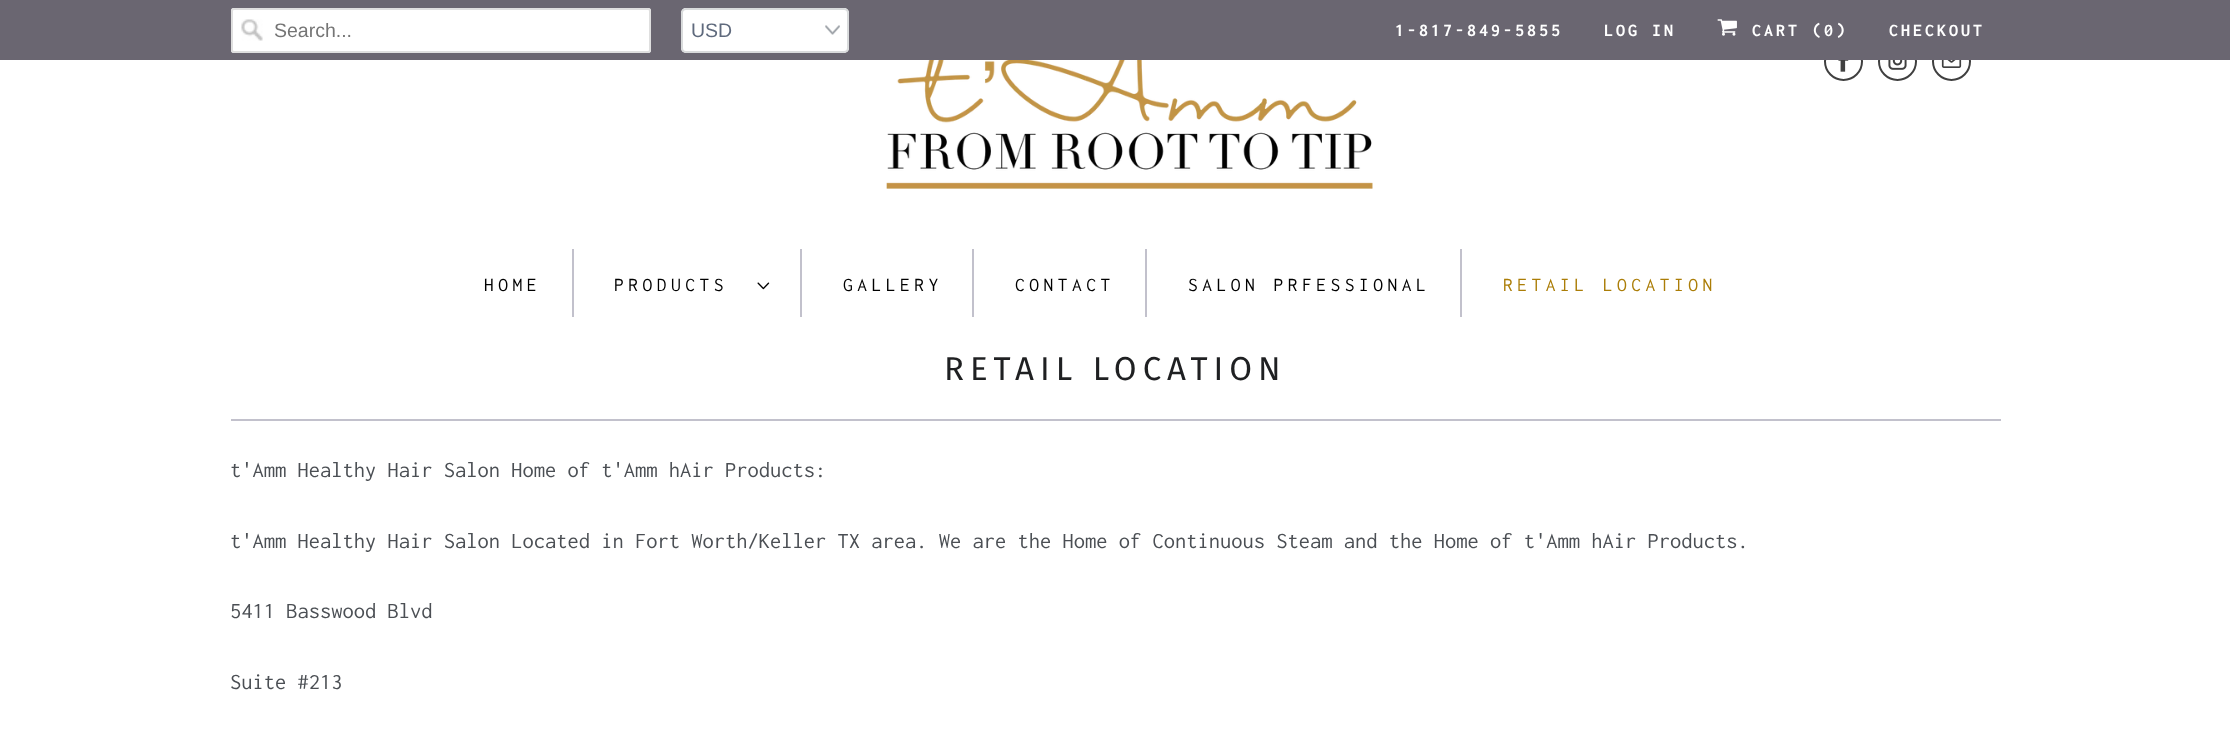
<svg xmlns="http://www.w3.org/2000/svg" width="2230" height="733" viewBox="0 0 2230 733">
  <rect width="100%" height="100%" fill="#ffffff"/>
  <circle cx="1843.5" cy="61.5" r="18.5" fill="none" stroke="#404040" stroke-width="2"/>
  <circle cx="1897.5" cy="61.5" r="18.5" fill="none" stroke="#404040" stroke-width="2"/>
  <circle cx="1951.5" cy="61.5" r="18.5" fill="none" stroke="#404040" stroke-width="2"/>
  <rect x="0" y="0" width="2230" height="60" fill="#6a6671"/>
  <rect x="231" y="8" width="420" height="45" rx="3" fill="#ffffff"/>
  <image x="241" y="19" width="22" height="22" href="img1.png"/>
  <rect x="232" y="9" width="418" height="43" rx="2" fill="none" stroke="#dfdfdf" stroke-width="2"/>
  <text x="274" y="37" font-family="Liberation Sans" font-size="19.5" fill="#757575">Search...</text>
  <rect x="681" y="8" width="168" height="45" rx="5" fill="#ffffff"/>
  <image x="825" y="25" width="15" height="10" href="img2.png"/>
  <rect x="682" y="9" width="166" height="43" rx="4" fill="none" stroke="#d9dbdc" stroke-width="2"/>
  <text x="691" y="37" font-family="Liberation Sans" font-size="19.5" fill="#5f6a7d">USD</text>
  <text x="1395" y="36" font-family="Inconsolata" font-size="18" font-weight="bold" letter-spacing="3" fill="#ffffff">1-817-849-5855</text>
  <text x="1604" y="36" font-family="Inconsolata" font-size="18" font-weight="bold" letter-spacing="3" fill="#ffffff">LOG IN</text>
  <image x="1717" y="19" width="20" height="17" href="img3.png"/>
  <text x="1752" y="36" font-family="Inconsolata" font-size="18" font-weight="bold" letter-spacing="3" fill="#ffffff">CART (0)</text>
  <text x="1889" y="36" font-family="Inconsolata" font-size="18" font-weight="bold" letter-spacing="3" fill="#ffffff">CHECKOUT</text>
  <image x="886" y="60" width="487" height="129" href="img4.png"/>
  <image x="1838" y="60" width="11" height="12" href="img5.png"/>
  <image x="1888" y="60" width="19" height="10" href="img6.png"/>
  <image x="1941" y="60" width="21" height="8" href="img7.png"/>
  <rect x="572" y="249" width="2" height="68" fill="#c2c1cc"/>
  <text x="484" y="291" font-family="Inconsolata" font-size="19.5" letter-spacing="4.5" fill="#000000">HOME</text>
  <rect x="800" y="249" width="2" height="68" fill="#c2c1cc"/>
  <text x="614" y="291" font-family="Inconsolata" font-size="19.5" letter-spacing="4.5" fill="#000000">PRODUCTS</text>
  <image x="757" y="282" width="13" height="8" href="img8.png"/>
  <rect x="972" y="249" width="2" height="68" fill="#c2c1cc"/>
  <text x="843" y="291" font-family="Inconsolata" font-size="19.5" letter-spacing="4.5" fill="#000000">GALLERY</text>
  <rect x="1145" y="249" width="2" height="68" fill="#c2c1cc"/>
  <text x="1015" y="291" font-family="Inconsolata" font-size="19.5" letter-spacing="4.5" fill="#000000">CONTACT</text>
  <rect x="1460" y="249" width="2" height="68" fill="#c2c1cc"/>
  <text x="1188" y="291" font-family="Inconsolata" font-size="19.5" letter-spacing="4.5" fill="#000000">SALON PRFESSIONAL</text>
  <text x="1503" y="291" font-family="Inconsolata" font-size="19.5" letter-spacing="4.5" fill="#ab7d07">RETAIL LOCATION</text>
  <rect x="231" y="419" width="1770" height="2" fill="#c2c1cc"/>
  <text x="944" y="380" font-family="Fira Sans" font-size="33" letter-spacing="6" fill="#1f2022">RETAIL LOCATION</text>
  <text x="230" y="477" font-family="Inconsolata" font-size="22.5" fill="#4b4f54">t'Amm Healthy Hair Salon Home of t'Amm hAir Products:</text>
  <text x="230" y="548" font-family="Inconsolata" font-size="22.5" fill="#4b4f54">t'Amm Healthy Hair Salon Located in Fort Worth/Keller TX area. We are the Home of Continuous Steam and the Home of t'Amm hAir Products.</text>
  <text x="230" y="618" font-family="Inconsolata" font-size="22.5" fill="#4b4f54">5411 Basswood Blvd</text>
  <text x="230" y="689" font-family="Inconsolata" font-size="22.5" fill="#4b4f54">Suite #213</text>
</svg>
